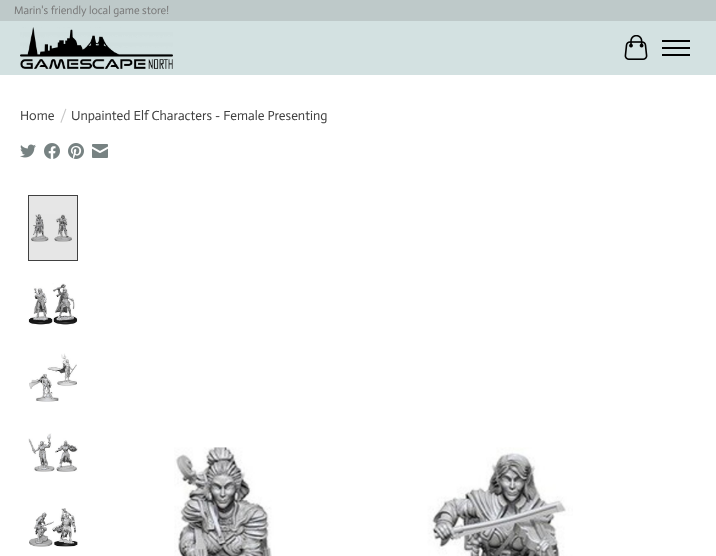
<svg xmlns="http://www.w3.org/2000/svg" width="716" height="556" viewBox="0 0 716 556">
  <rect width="100%" height="100%" fill="#ffffff"/>
  <rect x="29" y="196" width="48" height="64" fill="#e6e6e6"/>
  <rect x="0" y="21" width="716" height="54" fill="#d3e1e1"/>
  <rect x="0" y="0" width="716" height="21" fill="#bec9c9"/>
  <text x="14" y="14" font-family="Actor" font-size="11.1" fill="#797979">Marin's friendly local game store!</text>
  <image x="20" y="27" width="153" height="42" href="img1.png"/>
  <image x="624" y="35" width="24" height="25" href="img2.png"/>
  <rect x="662" y="47" width="28" height="2" fill="#000000"/>
  <rect x="662" y="40" width="28" height="2" fill="#000000"/>
  <rect x="662" y="54" width="28" height="2" fill="#000000"/>
  <text x="20" y="120" font-family="Actor" font-size="13.3" fill="#414141">Home</text>
  <text x="60" y="120" font-family="Actor" font-size="13.3" fill="#c6c6c6">/</text>
  <text x="71" y="120" font-family="Actor" font-size="13.3" fill="#414141">Unpainted Elf Characters - Female Presenting</text>
  <image x="20" y="144" width="16" height="14" href="img3.png"/>
  <image x="44" y="143" width="16" height="16" href="img4.png"/>
  <image x="68" y="143" width="16" height="16" href="img5.png"/>
  <image x="92" y="144" width="16" height="14" href="img6.png"/>
  <image x="31" y="214" width="41" height="28" href="img7.png"/>
  <rect x="28.5" y="195.5" width="49" height="65" fill="none" stroke="#414141"/>
  <image x="28" y="283" width="50" height="42" href="img8.png"/>
  <image x="29" y="353" width="48" height="49" href="img9.png"/>
  <image x="28" y="433" width="50" height="39" href="img10.png"/>
  <image x="29" y="508" width="49" height="39" href="img11.png"/>
  <image x="174" y="447" width="399" height="109" href="img12.png"/>
</svg>
